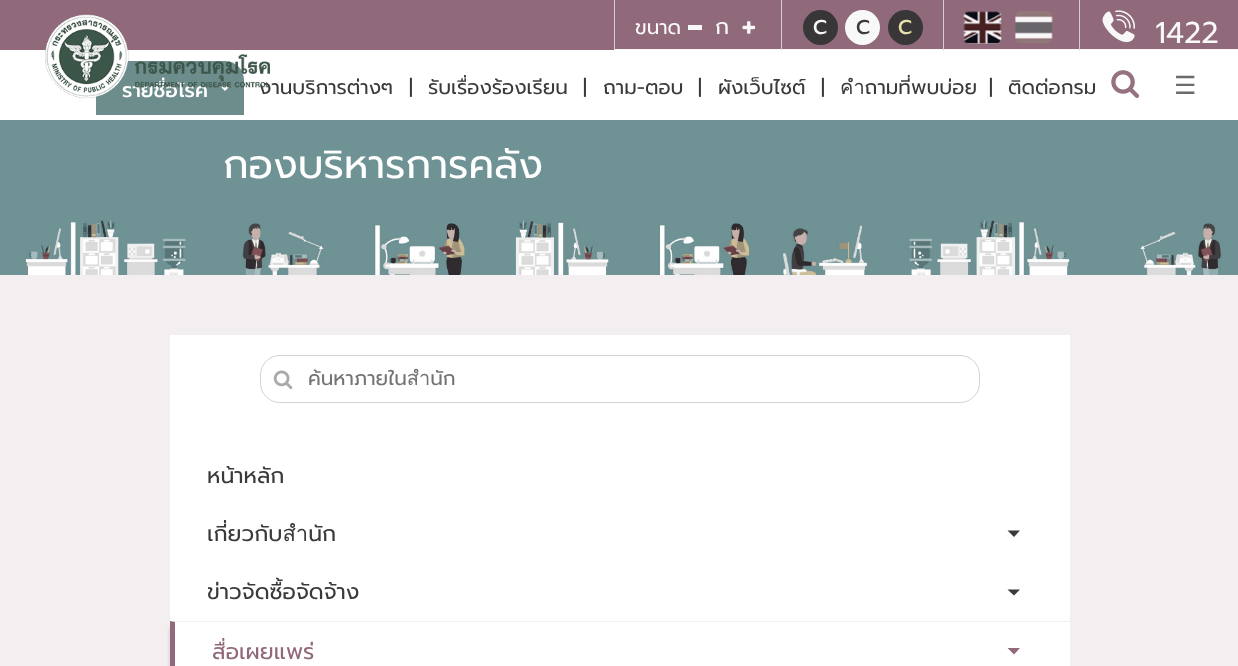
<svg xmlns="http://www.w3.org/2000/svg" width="1238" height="666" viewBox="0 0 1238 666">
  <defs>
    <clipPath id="clip1"><rect x="309" y="364" width="655" height="30"/></clipPath>
    <clipPath id="clip2"><rect x="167" y="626" width="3" height="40"/></clipPath>
    <filter id="blur1" x="-50%" y="-200%" width="200%" height="500%"><feGaussianBlur stdDeviation="2"/></filter>
  </defs>
  <rect width="100%" height="100%" fill="#ffffff"/>
  <rect x="0" y="0" width="1238" height="50" fill="#90697a"/>
  <path d="M115 61H225C235.5 61 244 69.5 244 80V115H96V80C96 69.5 104.5 61 115 61Z" fill="#6d8d8c"/>
  <text x="122" y="97" font-family="Prompt" font-size="20" font-weight="500" fill="#ffffff">รายชื่อโรค</text>
  <path d="M220 86H230L225 91Z" fill="#ffffff"/>
  <text x="259" y="94" font-family="Prompt" font-size="20" fill="#3a3a3a">งานบริการต่างๆ</text>
  <image x="45" y="14" width="225" height="85" href="img1.png"/>
  <rect x="614" y="49" width="624" height="1" fill="#f9f8f8"/>
  <rect x="614" y="0" width="1" height="50" fill="#cfced0"/>
  <text x="635" y="34" font-family="Prompt" font-size="20" fill="#f9f8f8">ขนาด</text>
  <rect x="688" y="25" width="14" height="5" fill="#f9f8f8"/>
  <text x="715" y="34" font-family="Prompt" font-size="22" fill="#f9f8f8">ก</text>
  <image x="742" y="21" width="14" height="13" href="img2.png"/>
  <rect x="781" y="0" width="1" height="50" fill="#cfced0"/>
  <circle cx="820.5" cy="27.5" r="17.5" fill="#383637"/>
  <text x="813" y="34" font-family="Prompt" font-size="20" font-weight="500" fill="#f9f8f8">C</text>
  <circle cx="862.5" cy="27.5" r="17.5" fill="#f9f8f8"/>
  <text x="856" y="34" font-family="Prompt" font-size="20" font-weight="500" fill="#3a3a3a">C</text>
  <circle cx="905.5" cy="27.5" r="17.5" fill="#383637"/>
  <text x="898" y="34" font-family="Prompt" font-size="20" font-weight="500" fill="#e6e1a8">C</text>
  <rect x="943" y="0" width="1" height="50" fill="#cfced0"/>
  <image x="963" y="11" width="39" height="33" href="img3.png"/>
  <image x="1015" y="11" width="38" height="33" href="img4.png"/>
  <rect x="1079" y="0" width="1" height="50" fill="#cfced0"/>
  <image x="1102" y="10" width="33" height="33" href="img5.png"/>
  <text x="1155" y="43" font-family="Prompt" font-size="30" fill="#f9f8f8">1422</text>
  <text x="409" y="94" font-family="Prompt" font-size="20" fill="#3a3a3a">|</text>
  <text x="428" y="94" font-family="Prompt" font-size="20" fill="#3a3a3a">รับเรื่องร้องเรียน</text>
  <text x="583" y="94" font-family="Prompt" font-size="20" fill="#3a3a3a">|</text>
  <text x="603" y="94" font-family="Prompt" font-size="20" fill="#3a3a3a">ถาม-ตอบ</text>
  <text x="698" y="94" font-family="Prompt" font-size="20" fill="#3a3a3a">|</text>
  <text x="718" y="94" font-family="Prompt" font-size="20" fill="#3a3a3a">ผังเว็บไซต์</text>
  <text x="821" y="94" font-family="Prompt" font-size="20" fill="#3a3a3a">|</text>
  <text x="840" y="94" font-family="Prompt" font-size="20" fill="#3a3a3a">คำถามที่พบบ่อย</text>
  <text x="989" y="94" font-family="Prompt" font-size="20" fill="#3a3a3a">|</text>
  <text x="1008" y="94" font-family="Prompt" font-size="20" fill="#3a3a3a">ติดต่อกรม</text>
  <image x="1111" y="70" width="29" height="28" href="img6.png"/>
  <text x="1174" y="94" font-family="DejaVu Sans" font-size="25" fill="#6b6b6b">☰</text>
  <image x="0" y="120" width="1238" height="155" href="img7.png"/>
  <text x="223" y="178" font-family="Prompt" font-size="40" fill="#ffffff">กองบริหารการคลัง</text>
  <rect x="0" y="275" width="1238" height="391" fill="#f3eeef"/>
  <rect x="170" y="335" width="900" height="331" fill="#ffffff"/>
  <rect x="260.5" y="355.5" width="719" height="47" rx="19.5" fill="none" stroke="#d2d3d5"/>
  <image x="273" y="370" width="20" height="19" href="img8.png"/>
  <g clip-path="url(#clip1)">
    <text x="308" y="385" font-family="Prompt" font-size="20" fill="#727476">ค้นหาภายในสำนัก</text>
  </g>
  <text x="207" y="483" font-family="Prompt" font-size="22" fill="#3a3a3a">หน้าหลัก</text>
  <text x="207" y="541" font-family="Prompt" font-size="22" fill="#3a3a3a">เกี่ยวกับสำนัก</text>
  <path d="M1007.5 530.5H1020L1014 537Z" fill="#3a3a3a"/>
  <text x="207" y="599" font-family="Prompt" font-size="22" fill="#3a3a3a">ข่าวจัดซื้อจัดจ้าง</text>
  <path d="M1007.5 589.5H1020L1014 595.5Z" fill="#3a3a3a"/>
  <g clip-path="url(#clip2)">
    <rect x="170" y="628" width="895" height="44" fill="#8c8c8c" fill-opacity="0.39" filter="url(#blur1)"/>
  </g>
  <path d="M170 621H1070V622H175Z" fill="#f2f1f1"/>
  <path d="M170 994V621L175 622V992Z" fill="#90697a"/>
  <text x="212" y="659" font-family="Prompt" font-size="22" fill="#90697a">สื่อเผยแพร่</text>
  <path d="M1007.5 648H1020L1014 654.5Z" fill="#90697a"/>
</svg>
